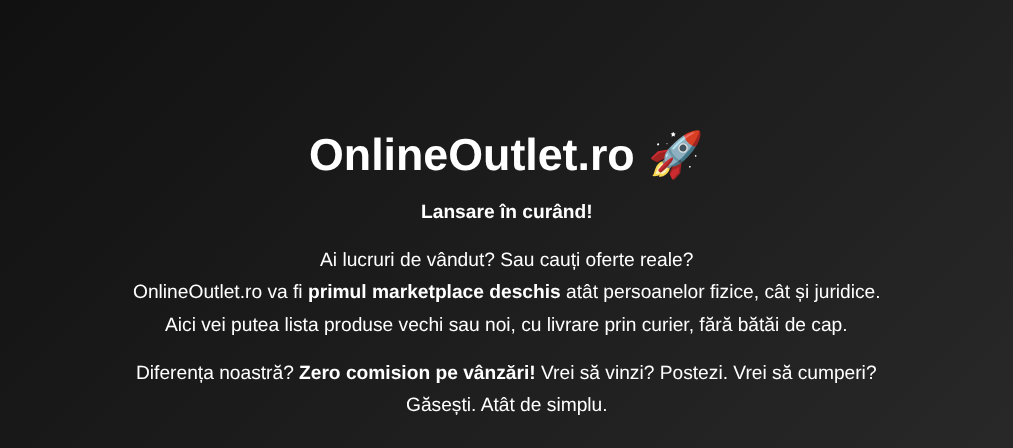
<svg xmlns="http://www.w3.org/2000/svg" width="1013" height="448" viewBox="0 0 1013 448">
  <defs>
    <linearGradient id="g1" gradientUnits="userSpaceOnUse" x1="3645" y1="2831" x2="407" y2="-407"><stop offset="0" stop-color="#ff6600"/><stop offset="0.33" stop-color="#ff944d"/><stop offset="0.67" stop-color="#333333"/><stop offset="1" stop-color="#111111"/></linearGradient>
  </defs>
  <rect width="100%" height="100%" fill="#ffffff"/>
  <rect x="0" y="0" width="1013" height="448" fill="url(#g1)"/>
  <text x="309" y="170" font-family="Liberation Sans" font-size="44.75" font-weight="bold" fill="#ffffff">OnlineOutlet.ro</text>
  <text x="648" y="170" font-family="Noto Color Emoji" font-size="44.75" font-weight="bold" fill="#ffffff">🚀</text>
  <text x="421" y="218" font-family="Liberation Sans" font-size="19.2" font-weight="bold" fill="#ffffff">Lansare în curând!</text>
  <text x="320" y="266" font-family="Liberation Sans" font-size="19.2" fill="#ffffff">Ai lucruri de vândut? Sau cauți oferte reale?</text>
  <text x="133" y="298" font-family="Liberation Sans" font-size="19.2" fill="#ffffff">OnlineOutlet.ro va fi</text>
  <text x="308" y="298" font-family="Liberation Sans" font-size="19.2" font-weight="bold" fill="#ffffff">primul marketplace deschis</text>
  <text x="566" y="298" font-family="Liberation Sans" font-size="19.2" fill="#ffffff">atât persoanelor fizice, cât și juridice.</text>
  <text x="165" y="331" font-family="Liberation Sans" font-size="19.2" fill="#ffffff">Aici vei putea lista produse vechi sau noi, cu livrare prin curier, fără bătăi de cap.</text>
  <text x="136" y="379" font-family="Liberation Sans" font-size="19.2" fill="#ffffff">Diferența noastră?</text>
  <text x="299" y="379" font-family="Liberation Sans" font-size="19.2" font-weight="bold" fill="#ffffff">Zero comision pe vânzări!</text>
  <text x="541" y="379" font-family="Liberation Sans" font-size="19.2" fill="#ffffff">Vrei să vinzi? Postezi. Vrei să cumperi?</text>
  <text x="406" y="411" font-family="Liberation Sans" font-size="19.2" fill="#ffffff">Găsești. Atât de simplu.</text>
</svg>
